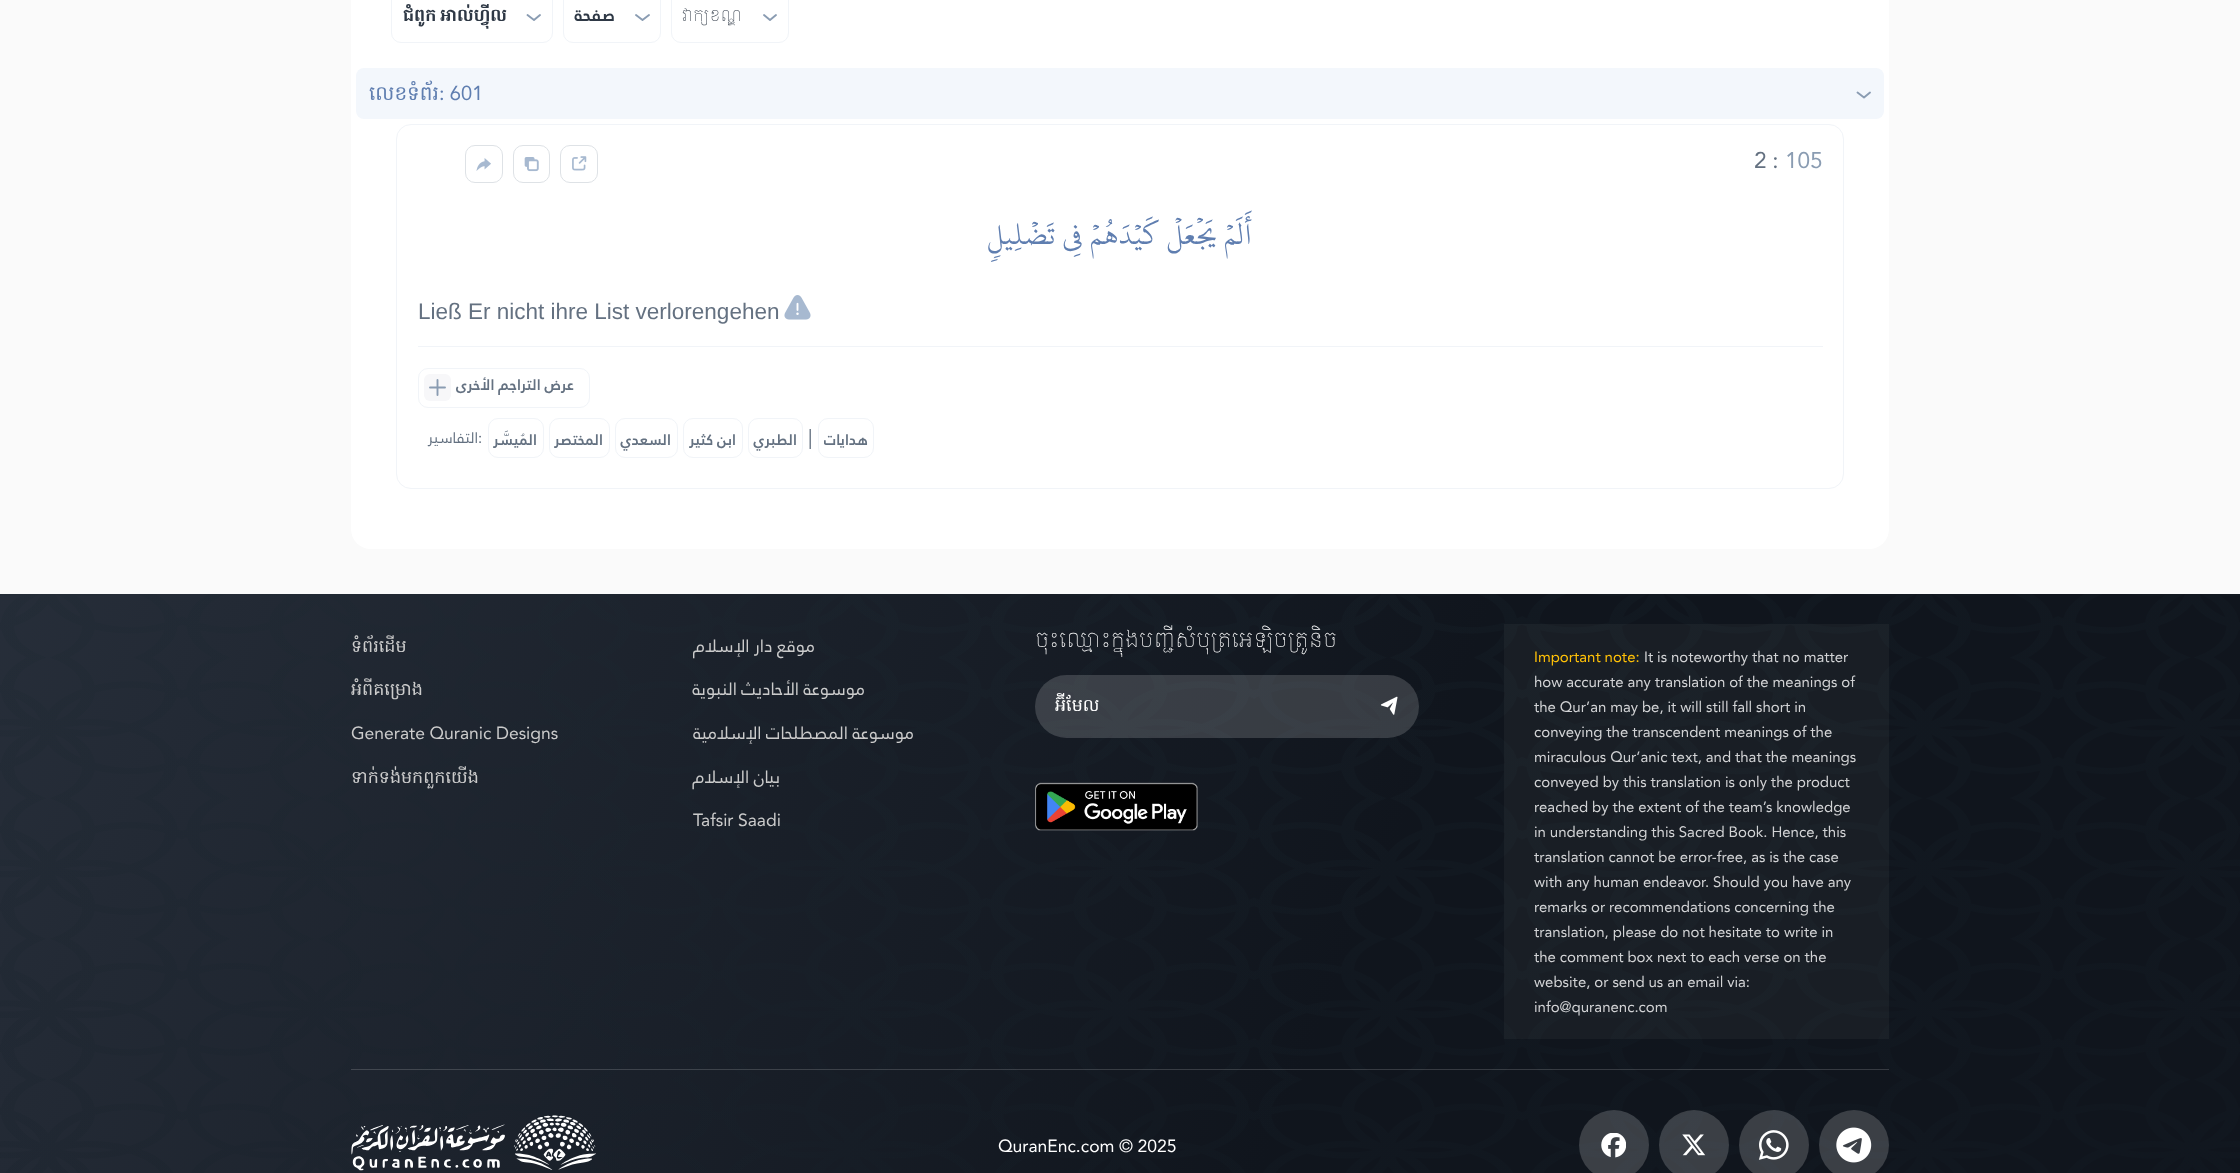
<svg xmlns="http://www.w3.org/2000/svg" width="2240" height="1173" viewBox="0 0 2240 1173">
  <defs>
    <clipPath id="clip1"><rect x="1055" y="689" width="284" height="32"/></clipPath>
  </defs>
  <rect width="100%" height="100%" fill="#fafafa"/>
  <rect x="351" y="-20" width="1538" height="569" rx="20" fill="#ffffff"/>
  <rect x="391.5" y="-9.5" width="161" height="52" rx="9.5" fill="none" stroke="#f1f4f8"/>
  <text x="403" y="21" word-spacing="-2" font-family="Hanuman" font-size="17.5" font-weight="bold" fill="#2e3845">ជំពូក អាល់ហ្វុីល</text>
  <path d="M527.5 15L534 20L540 15" fill="none" stroke="#8a9cb2" stroke-width="1.9" stroke-linecap="round" stroke-linejoin="round"/>
  <rect x="563.5" y="-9.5" width="97" height="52" rx="9.5" fill="none" stroke="#f1f4f8"/>
  <text x="615" y="21" font-family="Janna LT" font-size="17.5" font-weight="bold" direction="rtl" fill="#2e3845">صفحة</text>
  <path d="M636 15L642.5 20L649 15" fill="none" stroke="#8a9cb2" stroke-width="1.9" stroke-linecap="round" stroke-linejoin="round"/>
  <rect x="671.5" y="-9.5" width="117" height="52" rx="9.5" fill="none" stroke="#f1f4f8"/>
  <text x="682" y="21" font-family="Hanuman" font-size="17.5" font-weight="100" fill="#2e3845">វាក្យខណ្ឌ</text>
  <path d="M764 15L770 20L776 15" fill="none" stroke="#8a9cb2" stroke-width="1.9" stroke-linecap="round" stroke-linejoin="round"/>
  <rect x="356" y="68" width="1528" height="51" rx="8" fill="#f3f7fc"/>
  <text x="369" y="100" font-family="Hanuman" font-size="20" fill="#5f7eb0">លេខទំព័រ</text>
  <text x="439" y="100" font-family="Janna LT" font-size="20" fill="#5f7eb0">: 601</text>
  <path d="M1857.5 92.5L1864 97.5L1870 92.5" fill="none" stroke="#8a9cb2" stroke-width="1.9" stroke-linecap="round" stroke-linejoin="round"/>
  <rect x="396.5" y="124.5" width="1447" height="364" rx="14.5" fill="none" stroke="#f1f4f8"/>
  <rect x="465.5" y="145.5" width="37" height="37" rx="9.5" fill="none" stroke="#dee2e6"/>
  <image x="476" y="158" width="15" height="13" href="img1.png"/>
  <rect x="513.5" y="145.5" width="36" height="37" rx="9.5" fill="none" stroke="#dee2e6"/>
  <image x="524" y="157" width="15" height="15" href="img2.png"/>
  <rect x="560.5" y="145.5" width="37" height="37" rx="9.5" fill="none" stroke="#dee2e6"/>
  <image x="572" y="156" width="15" height="15" href="img3.png"/>
  <text x="1754" y="168" font-family="Janna LT" font-size="22.5" fill="#647181">2 :</text>
  <text x="1785" y="168" font-family="Janna LT" font-size="22.5" fill="#8a9cb2">105</text>
  <text x="1252" y="244" font-family="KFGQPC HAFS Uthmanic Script" font-size="32.5" direction="rtl" fill="#5f7eb0">أَلَمۡ يَجۡعَلۡ كَيۡدَهُمۡ فِي تَضۡلِيلٖ</text>
  <rect x="418" y="346" width="1405" height="1" fill="#f1f4f8"/>
  <text x="418" y="319" font-family="Liberation Sans" font-size="22.5" fill="#647181">Ließ Er nicht ihre List verlorengehen</text>
  <image x="784" y="295" width="27" height="25" href="img4.png"/>
  <rect x="418.5" y="368.5" width="171" height="39" rx="9.5" fill="none" stroke="#f1f4f8"/>
  <rect x="424" y="374" width="27" height="27" rx="6" fill="#f7f7f9"/>
  <path d="M437.5 380V395M445 387.5H430" fill="none" stroke="#8a9cb2" stroke-width="1.9" stroke-linecap="round" stroke-linejoin="round"/>
  <text x="574" y="390" font-family="Janna LT" font-size="15" font-weight="bold" direction="rtl" fill="#647181">عرض التراجم الأخرى</text>
  <text x="478" y="443" font-family="Janna LT" font-size="15" direction="rtl" fill="#647181">التفاسير</text>
  <text x="478" y="443" font-family="Janna LT" font-size="15" fill="#647181">:</text>
  <rect x="488.5" y="418.5" width="55" height="39" rx="9.5" fill="none" stroke="#f1f4f8"/>
  <text x="537" y="445" font-family="Janna LT" font-size="15" font-weight="bold" direction="rtl" fill="#647181">المُيسَّر</text>
  <rect x="549.5" y="418.5" width="60" height="39" rx="9.5" fill="none" stroke="#f1f4f8"/>
  <text x="603" y="445" font-family="Janna LT" font-size="15" font-weight="bold" direction="rtl" fill="#647181">المختصر</text>
  <rect x="615.5" y="418.5" width="62" height="39" rx="9.5" fill="none" stroke="#f1f4f8"/>
  <text x="671" y="445" font-family="Janna LT" font-size="15" font-weight="bold" direction="rtl" fill="#647181">السعدي</text>
  <rect x="683.5" y="418.5" width="59" height="39" rx="9.5" fill="none" stroke="#f1f4f8"/>
  <text x="736" y="445" font-family="Janna LT" font-size="15" font-weight="bold" direction="rtl" fill="#647181">ابن كثير</text>
  <rect x="748.5" y="418.5" width="54" height="39" rx="9.5" fill="none" stroke="#f1f4f8"/>
  <text x="797" y="445" font-family="Janna LT" font-size="15" font-weight="bold" direction="rtl" fill="#647181">الطبري</text>
  <text x="808" y="444" font-family="Janna LT" font-size="20" fill="#647181">|</text>
  <rect x="818.5" y="418.5" width="55" height="39" rx="9.5" fill="none" stroke="#f1f4f8"/>
  <text x="868" y="445" font-family="Janna LT" font-size="15" font-weight="bold" direction="rtl" fill="#647181">هدايات</text>
  <image x="0" y="594" width="2240" height="579" href="img5.png"/>
  <rect x="351" y="1069" width="1538" height="1" fill="#ffffff" fill-opacity="0.16"/>
  <text x="351" y="652" font-family="Hanuman" font-size="17.5" fill="#cbcbcb">ទំព័រដេីម</text>
  <text x="351" y="695" font-family="Hanuman" font-size="17.5" fill="#cbcbcb">អំពីគម្រោង</text>
  <text x="351" y="739" font-family="Janna LT" font-size="17.5" fill="#cbcbcb">Generate Quranic Designs</text>
  <text x="351" y="783" font-family="Hanuman" font-size="17.5" fill="#cbcbcb">ទាក់ទង់មកពួកយើង</text>
  <text x="815" y="652" font-family="Janna LT" font-size="17.5" direction="rtl" fill="#cbcbcb">موقع دار الإسلام</text>
  <text x="865" y="695" font-family="Janna LT" font-size="17.5" direction="rtl" fill="#cbcbcb">موسوعة الأحاديث النبوية</text>
  <text x="914" y="739" font-family="Janna LT" font-size="17.5" direction="rtl" fill="#cbcbcb">موسوعة المصطلحات الإسلامية</text>
  <text x="780" y="783" font-family="Janna LT" font-size="17.5" direction="rtl" fill="#cbcbcb">بيان الإسلام</text>
  <text x="693" y="826" font-family="Janna LT" font-size="17.5" fill="#cbcbcb">Tafsir Saadi</text>
  <text x="1035" y="647" font-family="Hanuman" font-size="22.5" font-weight="100" fill="#ffffff">ចុះឈ្មោះក្នុងបញ្ជីសំបុត្រអេឡិចត្រូនិច</text>
  <rect x="1035" y="675" width="384" height="63" rx="31.5" fill="#ffffff" fill-opacity="0.16"/>
  <g clip-path="url(#clip1)">
    <text x="1055" y="711" font-family="Hanuman" font-size="17.5" fill="#ffffff">អ៊ីមែល</text>
  </g>
  <image x="1380" y="696" width="18" height="19" href="img6.png"/>
  <image x="1035" y="782" width="163" height="49" href="img7.png"/>
  <rect x="1504" y="624" width="385" height="415" fill="#ffffff" fill-opacity="0.04"/>
  <text x="1534" y="662" font-family="Janna LT" font-size="15" fill="#ffc107">Important note:</text>
  <text x="1644" y="662" font-family="Janna LT" font-size="15" fill="#d1d2d4">It is noteworthy that no matter</text>
  <text x="1534" y="687" font-family="Janna LT" font-size="15" fill="#d1d2d4">how accurate any translation of the meanings of</text>
  <text x="1534" y="712" font-family="Janna LT" font-size="15" fill="#d1d2d4">the Qur’an may be, it will still fall short in</text>
  <text x="1534" y="737" font-family="Janna LT" font-size="15" fill="#d1d2d4">conveying the transcendent meanings of the</text>
  <text x="1534" y="762" font-family="Janna LT" font-size="15" fill="#d1d2d4">miraculous Qur’anic text, and that the meanings</text>
  <text x="1534" y="787" font-family="Janna LT" font-size="15" fill="#d1d2d4">conveyed by this translation is only the product</text>
  <text x="1534" y="812" font-family="Janna LT" font-size="15" fill="#d1d2d4">reached by the extent of the team’s knowledge</text>
  <text x="1534" y="837" font-family="Janna LT" font-size="15" fill="#d1d2d4">in understanding this Sacred Book. Hence, this</text>
  <text x="1534" y="862" font-family="Janna LT" font-size="15" fill="#d1d2d4">translation cannot be error-free, as is the case</text>
  <text x="1534" y="887" font-family="Janna LT" font-size="15" fill="#d1d2d4">with any human endeavor. Should you have any</text>
  <text x="1534" y="912" font-family="Janna LT" font-size="15" fill="#d1d2d4">remarks or recommendations concerning the</text>
  <text x="1534" y="937" font-family="Janna LT" font-size="15" fill="#d1d2d4">translation, please do not hesitate to write in</text>
  <text x="1534" y="962" font-family="Janna LT" font-size="15" fill="#d1d2d4">the comment box next to each verse on the</text>
  <text x="1534" y="987" font-family="Janna LT" font-size="15" fill="#d1d2d4">website, or send us an email via:</text>
  <text x="1534" y="1012" font-family="Janna LT" font-size="15" fill="#d1d2d4">info@quranenc.com</text>
  <image x="351" y="1115" width="245" height="56" href="img8.png"/>
  <text x="998" y="1152" font-family="Janna LT" font-size="17.5" fill="#ffffff">QuranEnc.com © 2025</text>
  <circle cx="1614" cy="1145" r="35" fill="#ffffff" fill-opacity="0.18"/>
  <image x="1601" y="1133" width="25" height="25" href="img9.png"/>
  <circle cx="1694" cy="1145" r="35" fill="#ffffff" fill-opacity="0.18"/>
  <image x="1682" y="1134" width="24" height="22" href="img10.png"/>
  <circle cx="1774" cy="1145" r="35" fill="#ffffff" fill-opacity="0.18"/>
  <image x="1758" y="1130" width="31" height="30" href="img11.png"/>
  <circle cx="1854" cy="1145" r="35" fill="#ffffff" fill-opacity="0.18"/>
  <image x="1836" y="1127" width="36" height="36" href="img12.png"/>
</svg>
